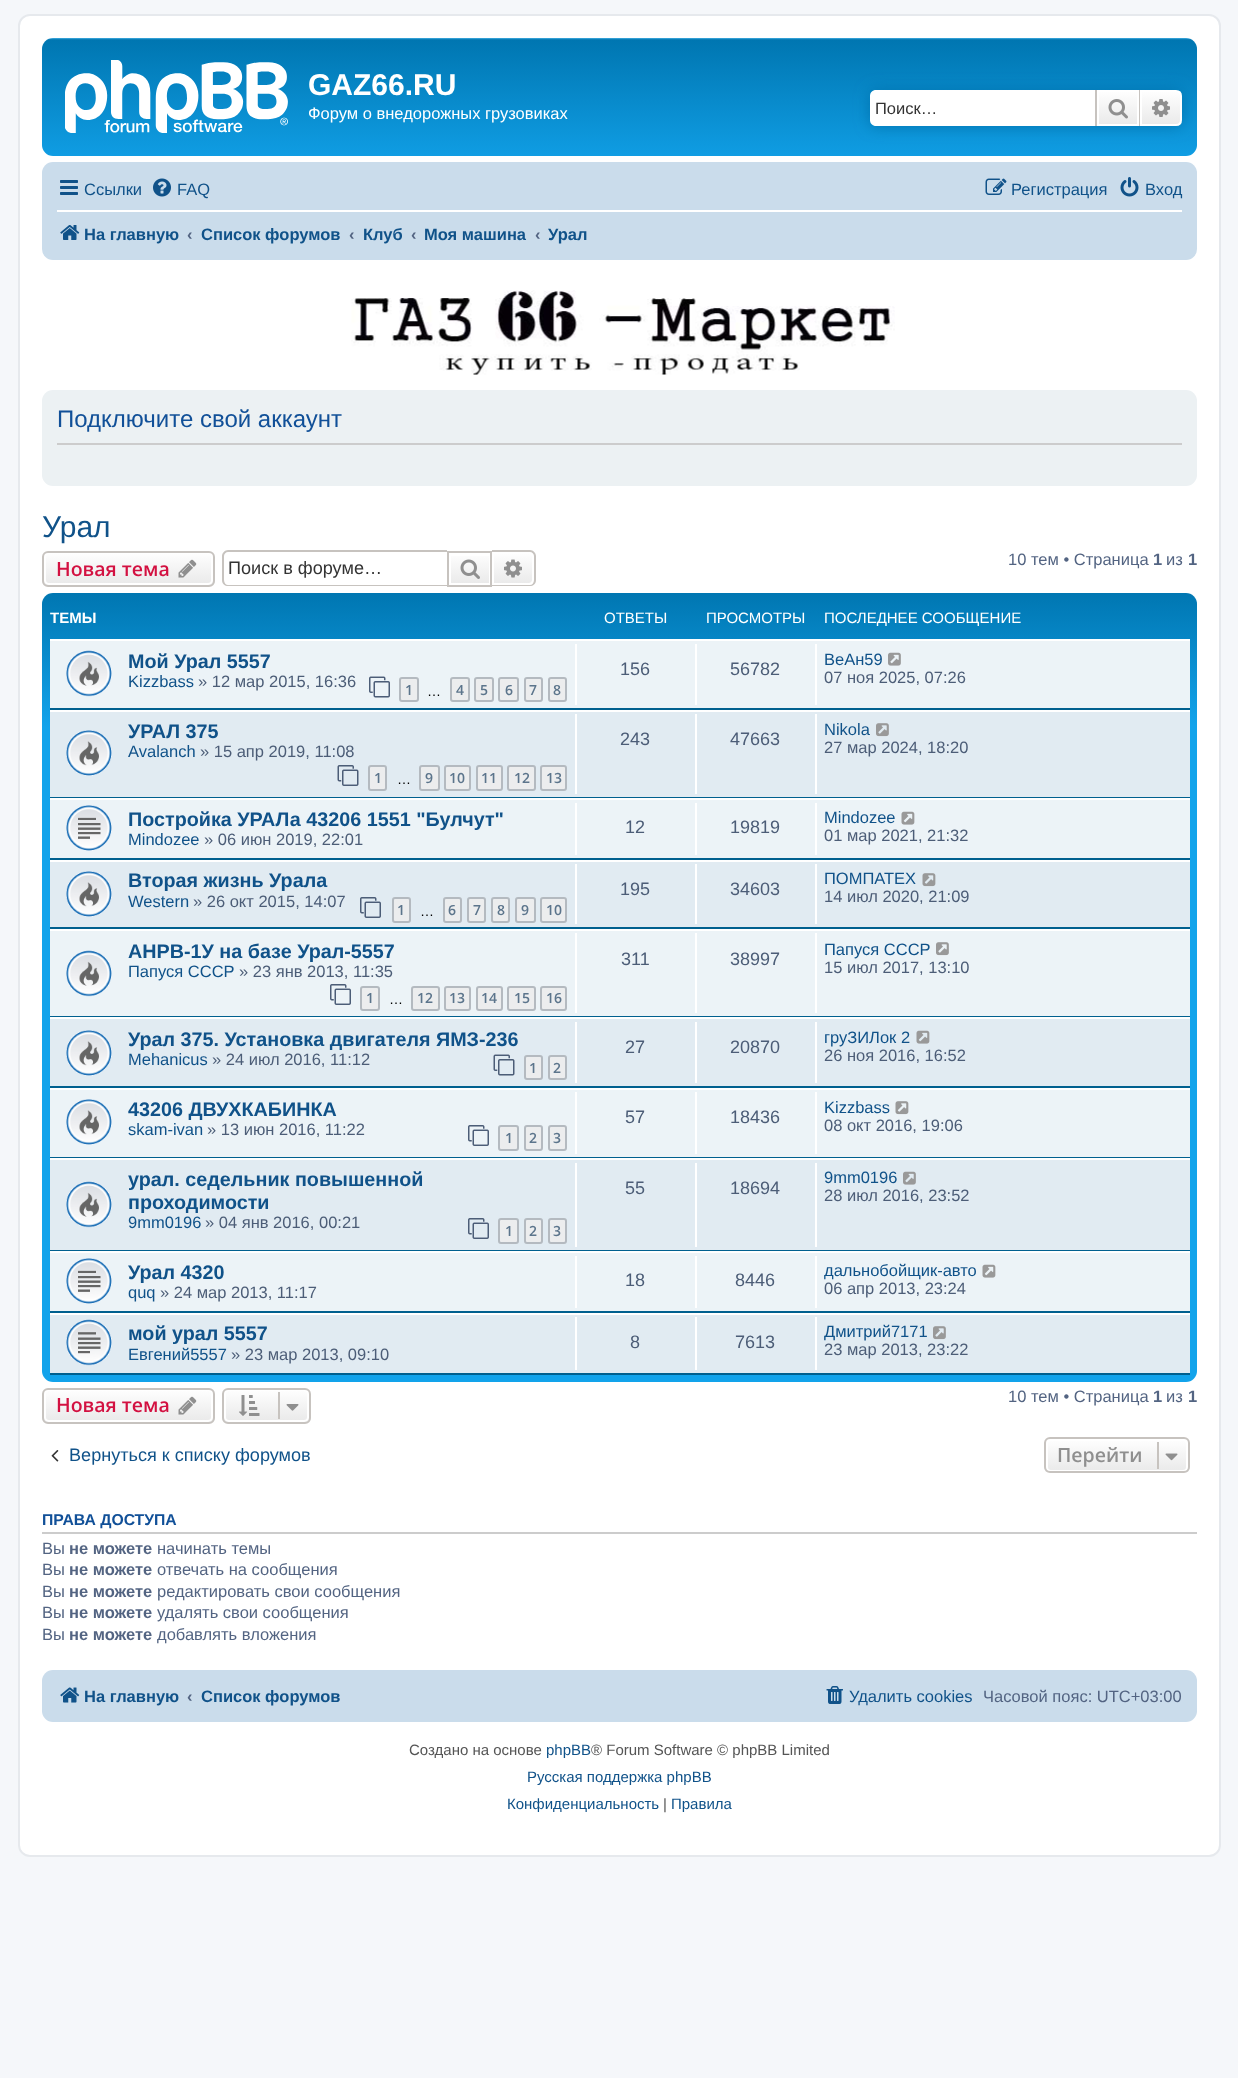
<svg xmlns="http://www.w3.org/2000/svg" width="1238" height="2078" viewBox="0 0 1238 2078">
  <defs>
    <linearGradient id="g1" gradientUnits="userSpaceOnUse" x1="620" y1="37" x2="620" y2="175"><stop offset="0" stop-color="#6aceff"/><stop offset="0.02" stop-color="#0076b1"/><stop offset="1" stop-color="#12a3eb"/></linearGradient>
    <filter id="blur1" x="-50%" y="-200%" width="200%" height="500%"><feGaussianBlur stdDeviation="7.5"/></filter>
    <linearGradient id="g2" gradientUnits="userSpaceOnUse" x1="1118" y1="90" x2="1118" y2="126"><stop offset="0" stop-color="#ffffff"/><stop offset="1" stop-color="#e9e9e9"/></linearGradient>
    <linearGradient id="g3" gradientUnits="userSpaceOnUse" x1="1161" y1="90" x2="1161" y2="126"><stop offset="0" stop-color="#ffffff"/><stop offset="1" stop-color="#e9e9e9"/></linearGradient>
    <clipPath id="clip1"><rect x="42" y="551" width="173" height="36" rx="6"/></clipPath>
    <linearGradient id="g4" gradientUnits="userSpaceOnUse" x1="128" y1="552" x2="128" y2="585"><stop offset="0" stop-color="#ffffff"/><stop offset="1" stop-color="#e9e9e9"/></linearGradient>
    <linearGradient id="g5" gradientUnits="userSpaceOnUse" x1="470" y1="552" x2="470" y2="585"><stop offset="0" stop-color="#ffffff"/><stop offset="1" stop-color="#e9e9e9"/></linearGradient>
    <linearGradient id="g6" gradientUnits="userSpaceOnUse" x1="513" y1="552" x2="513" y2="585"><stop offset="0" stop-color="#ffffff"/><stop offset="1" stop-color="#e9e9e9"/></linearGradient>
    <linearGradient id="g7" gradientUnits="userSpaceOnUse" x1="619" y1="592" x2="620" y2="1382"><stop offset="0" stop-color="#6aceff"/><stop offset="0" stop-color="#0076b1"/><stop offset="0.17" stop-color="#12a3eb"/><stop offset="1" stop-color="#12a3eb"/></linearGradient>
    <clipPath id="clip2"><rect x="50" y="600" width="1140" height="39"/></clipPath>
    <clipPath id="clip3"><rect x="42" y="1388" width="173" height="36" rx="6"/></clipPath>
    <linearGradient id="g8" gradientUnits="userSpaceOnUse" x1="128" y1="1389" x2="128" y2="1422"><stop offset="0" stop-color="#ffffff"/><stop offset="1" stop-color="#e9e9e9"/></linearGradient>
    <clipPath id="clip4"><rect x="222" y="1388" width="89" height="36" rx="6"/></clipPath>
    <linearGradient id="g9" gradientUnits="userSpaceOnUse" x1="266" y1="1389" x2="266" y2="1422"><stop offset="0" stop-color="#ffffff"/><stop offset="1" stop-color="#e9e9e9"/></linearGradient>
    <clipPath id="clip5"><rect x="1044" y="1437" width="146" height="36" rx="6"/></clipPath>
    <linearGradient id="g10" gradientUnits="userSpaceOnUse" x1="1117" y1="1439" x2="1117" y2="1472"><stop offset="0" stop-color="#ffffff"/><stop offset="1" stop-color="#e9e9e9"/></linearGradient>
  </defs>
  <rect width="100%" height="100%" fill="#f5f7fa"/>
  <rect x="19" y="15" width="1201" height="1841" rx="11" fill="#ffffff" stroke="#e6e9ed" stroke-width="2"/>
  <rect x="42" y="38" width="1155" height="118" rx="11" fill="url(#g1)"/>
  <image x="65" y="60" width="223" height="73" href="img1.png"/>
  <text x="308" y="95" font-family="Liberation Sans" font-size="30" font-weight="bold" fill="#ffffff">GAZ66.RU</text>
  <text x="308" y="119" font-family="Liberation Sans" font-size="16.5" fill="#ffffff">Форум о внедорожных грузовиках</text>
  <rect x="870" y="90" width="312" height="36" rx="6" fill="#0075b0" filter="url(#blur1)"/>
  <path d="M876 90H1095V126H876C872.5 126 870 123.5 870 120V96C870 92.5 872.5 90 876 90Z" fill="#ffffff"/>
  <text x="875" y="114" font-family="Liberation Sans" font-size="16.5" fill="#333333">Поиск…</text>
  <rect x="1099" y="92" width="38" height="32" fill="url(#g2)"/>
  <rect x="1098" y="91" width="40" height="34" fill="none" stroke="#ffffff" stroke-width="2"/>
  <rect x="1139" y="90" width="1" height="36" fill="#c7c3bf"/>
  <rect x="1095" y="90" width="2" height="36" fill="#c7c3bf"/>
  <image x="1108" y="99" width="20" height="20" href="img2.png"/>
  <path d="M1141 91H1176C1179 91 1181 93 1181 96V120C1181 123 1179 125 1176 125H1141Z" fill="url(#g3)" stroke="#ffffff" stroke-width="2"/>
  <image x="1152" y="99" width="18" height="18" href="img3.png"/>
  <rect x="42" y="162" width="1155" height="98" rx="11" fill="#cadceb"/>
  <image x="60" y="180" width="18" height="15" href="img4.png"/>
  <text x="84" y="195" font-family="Liberation Sans" font-size="16.5" fill="#105289">Ссылки</text>
  <image x="153" y="178" width="18" height="19" href="img5.png"/>
  <text x="177" y="195" font-family="Liberation Sans" font-size="16.5" fill="#105289">FAQ</text>
  <image x="985" y="178" width="22" height="17" href="img6.png"/>
  <text x="1011" y="195" font-family="Liberation Sans" font-size="16.5" fill="#105289">Регистрация</text>
  <image x="1120" y="177" width="19" height="20" href="img7.png"/>
  <text x="1145" y="195" font-family="Liberation Sans" font-size="16.5" fill="#105289">Вход</text>
  <rect x="57" y="210" width="1125" height="2" fill="#ffffff"/>
  <image x="60" y="225" width="20" height="15" href="img8.png"/>
  <text x="84" y="240" font-family="Liberation Sans" font-size="16.5" font-weight="bold" fill="#105289">На главную</text>
  <text x="187" y="240" font-family="Liberation Sans" font-size="16.5" font-weight="bold" fill="#536482">‹</text>
  <text x="201" y="240" font-family="Liberation Sans" font-size="16.5" font-weight="bold" fill="#105289">Список форумов</text>
  <text x="349" y="240" font-family="Liberation Sans" font-size="16.5" font-weight="bold" fill="#536482">‹</text>
  <text x="363" y="240" font-family="Liberation Sans" font-size="16.5" font-weight="bold" fill="#105289">Клуб</text>
  <text x="411" y="240" font-family="Liberation Sans" font-size="16.5" font-weight="bold" fill="#536482">‹</text>
  <text x="424" y="240" font-family="Liberation Sans" font-size="16.5" font-weight="bold" fill="#105289">Моя машина</text>
  <text x="535" y="240" font-family="Liberation Sans" font-size="16.5" font-weight="bold" fill="#536482">‹</text>
  <text x="548" y="240" font-family="Liberation Sans" font-size="16.5" font-weight="bold" fill="#105289">Урал</text>
  <image x="351" y="290" width="544" height="85" href="img9.png"/>
  <rect x="42" y="390" width="1155" height="96" rx="11" fill="#ecf1f3"/>
  <rect x="57" y="443" width="1125" height="2" fill="#cccccc"/>
  <text x="57" y="427" font-family="Liberation Sans" font-size="24" fill="#115098">Подключите свой аккаунт</text>
  <text x="42" y="537" font-family="Liberation Sans" font-size="30" fill="#105289">Урал</text>
  <g clip-path="url(#clip1)">
    <rect x="42" y="552" width="173" height="33" fill="url(#g4)"/>
  </g>
  <rect x="45" y="553" width="167" height="31" rx="4" fill="none" stroke="#ffffff" stroke-width="2"/>
  <rect x="43" y="552" width="171" height="34" rx="5" fill="none" stroke="#c7c3bf" stroke-width="2"/>
  <text x="56" y="576" font-family="Open Sans" font-size="19.5" font-weight="600" fill="#d31141">Новая тема</text>
  <image x="178" y="559" width="19" height="19" href="img10.png"/>
  <path d="M228 550H447V586H228C225 586 222 584 222 580V556C222 553 225 550 228 550ZM228 552H447V585H228C226 585 224 583 224 580V556C224 554 226 552 228 552Z" fill="#c7c3bf" fill-rule="evenodd"/>
  <text x="228" y="574" font-family="Liberation Sans" font-size="18.1" fill="#333333">Поиск в форуме…</text>
  <rect x="451" y="556" width="38" height="27" fill="url(#g5)"/>
  <rect x="448" y="552" width="43" height="34" fill="none" stroke="#c7c3bf" stroke-width="2"/>
  <image x="460" y="559" width="20" height="20" href="img11.png"/>
  <path d="M493 553H529C531 553 533 555 533 557V580C533 582 531 584 529 584H493Z" fill="url(#g6)" stroke="#ffffff" stroke-width="2"/>
  <path d="M492 550H530C533 550 536 553 536 556V580C536 584 533 586 530 586H492ZM492 552H530C532 552 534 554 534 556V580C534 583 532 585 530 585H492Z" fill="#c7c3bf" fill-rule="evenodd"/>
  <image x="504" y="559" width="18" height="19" href="img12.png"/>
  <text x="1008" y="565" font-family="Liberation Sans" font-size="16.5" fill="#536482">10 тем • Страница</text>
  <text x="1153" y="565" font-family="Liberation Sans" font-size="16.5" font-weight="bold" fill="#536482">1</text>
  <text x="1166" y="565" font-family="Liberation Sans" font-size="16.5" fill="#536482">из</text>
  <text x="1188" y="565" font-family="Liberation Sans" font-size="16.5" font-weight="bold" fill="#536482">1</text>
  <rect x="42" y="593" width="1155" height="789" rx="11" fill="url(#g7)"/>
  <g clip-path="url(#clip2)">
    <text x="50" y="623" font-family="Liberation Sans" font-size="15" font-weight="bold" fill="#ffffff">ТЕМЫ</text>
  </g>
  <text x="604" y="623" font-family="Liberation Sans" font-size="15" fill="#ffffff">ОТВЕТЫ</text>
  <text x="706" y="623" font-family="Liberation Sans" font-size="15" fill="#ffffff">ПРОСМОТРЫ</text>
  <text x="824" y="623" font-family="Liberation Sans" font-size="15" fill="#ffffff">ПОСЛЕДНЕЕ СООБЩЕНИЕ</text>
  <rect x="50" y="641" width="1140" height="67" fill="#ecf3f7"/>
  <rect x="50" y="639" width="1140" height="2" fill="#ffffff"/>
  <rect x="50" y="708" width="1140" height="2" fill="#00608f"/>
  <image x="66" y="650" width="46" height="47" href="img13.png"/>
  <text x="128" y="668" font-family="Liberation Sans" font-size="19.75" font-weight="bold" fill="#105289">Мой Урал 5557</text>
  <text x="128" y="687" font-family="Liberation Sans" font-size="16.5" fill="#105289">Kizzbass</text>
  <text x="198" y="687" font-family="Liberation Sans" font-size="16.5" fill="#4c5d77">» 12 мар 2015, 16:36</text>
  <image x="369" y="676" width="21" height="22" href="img14.png"/>
  <rect x="400" y="678" width="18" height="23" rx="2" fill="#ecedee" stroke="#b4bac0" stroke-width="2"/>
  <text x="405" y="695" font-family="Open Sans" font-size="14" font-weight="600" fill="#5c758c">1</text>
  <text x="427" y="696" font-family="Liberation Sans" font-size="14" fill="#000000">…</text>
  <rect x="451" y="678" width="18" height="23" rx="2" fill="#ecedee" stroke="#b4bac0" stroke-width="2"/>
  <text x="456" y="695" font-family="Open Sans" font-size="14" font-weight="600" fill="#5c758c">4</text>
  <rect x="475" y="678" width="18" height="23" rx="2" fill="#ecedee" stroke="#b4bac0" stroke-width="2"/>
  <text x="480" y="695" font-family="Open Sans" font-size="14" font-weight="600" fill="#5c758c">5</text>
  <rect x="499" y="678" width="19" height="23" rx="2" fill="#ecedee" stroke="#b4bac0" stroke-width="2"/>
  <text x="505" y="695" font-family="Open Sans" font-size="14" font-weight="600" fill="#5c758c">6</text>
  <rect x="525" y="678" width="17" height="23" rx="2" fill="#ecedee" stroke="#b4bac0" stroke-width="2"/>
  <text x="529" y="695" font-family="Open Sans" font-size="14" font-weight="600" fill="#5c758c">7</text>
  <rect x="549" y="678" width="17" height="23" rx="2" fill="#ecedee" stroke="#b4bac0" stroke-width="2"/>
  <text x="553" y="695" font-family="Open Sans" font-size="14" font-weight="600" fill="#5c758c">8</text>
  <rect x="575" y="644" width="2" height="61" fill="#ffffff"/>
  <text x="620" y="675" font-family="Liberation Sans" font-size="18" fill="#4c5d77">156</text>
  <rect x="695" y="644" width="2" height="61" fill="#ffffff"/>
  <text x="730" y="675" font-family="Liberation Sans" font-size="18" fill="#4c5d77">56782</text>
  <rect x="815" y="644" width="2" height="61" fill="#ffffff"/>
  <text x="824" y="665" font-family="Liberation Sans" font-size="16.5" fill="#105289">ВеАн59</text>
  <image x="888" y="652" width="13" height="14" href="img15.png"/>
  <text x="824" y="683" font-family="Liberation Sans" font-size="16.5" fill="#4c5d77">07 ноя 2025, 07:26</text>
  <rect x="50" y="712" width="1140" height="85" fill="#e1ebf2"/>
  <rect x="50" y="710" width="1140" height="2" fill="#ffffff"/>
  <rect x="50" y="797" width="1140" height="1" fill="#00608f"/>
  <image x="66" y="730" width="46" height="46" href="img16.png"/>
  <text x="128" y="738" font-family="Liberation Sans" font-size="19.75" font-weight="bold" fill="#105289">УРАЛ 375</text>
  <text x="128" y="757" font-family="Liberation Sans" font-size="16.5" fill="#105289">Avalanch</text>
  <text x="200" y="757" font-family="Liberation Sans" font-size="16.5" fill="#4c5d77">» 15 апр 2019, 11:08</text>
  <image x="337" y="765" width="22" height="21" href="img17.png"/>
  <rect x="369" y="766" width="17" height="24" rx="2" fill="#ecedee" stroke="#b4bac0" stroke-width="2"/>
  <text x="374" y="783" font-family="Open Sans" font-size="14" font-weight="600" fill="#5c758c">1</text>
  <text x="397" y="784" font-family="Liberation Sans" font-size="14" fill="#000000">…</text>
  <rect x="420" y="766" width="19" height="24" rx="2" fill="#ecedee" stroke="#b4bac0" stroke-width="2"/>
  <text x="425" y="783" font-family="Open Sans" font-size="14" font-weight="600" fill="#5c758c">9</text>
  <rect x="445" y="766" width="25" height="24" rx="2" fill="#ecedee" stroke="#b4bac0" stroke-width="2"/>
  <text x="449" y="783" font-family="Open Sans" font-size="14" font-weight="600" fill="#5c758c">10</text>
  <rect x="477" y="766" width="25" height="24" rx="2" fill="#ecedee" stroke="#b4bac0" stroke-width="2"/>
  <text x="481" y="783" font-family="Open Sans" font-size="14" font-weight="600" fill="#5c758c">11</text>
  <rect x="508" y="766" width="27" height="24" rx="2" fill="#ecedee" stroke="#b4bac0" stroke-width="2"/>
  <text x="514" y="783" font-family="Open Sans" font-size="14" font-weight="600" fill="#5c758c">12</text>
  <rect x="541" y="766" width="25" height="24" rx="2" fill="#ecedee" stroke="#b4bac0" stroke-width="2"/>
  <text x="546" y="783" font-family="Open Sans" font-size="14" font-weight="600" fill="#5c758c">13</text>
  <rect x="575" y="714" width="2" height="80" fill="#ffffff"/>
  <text x="620" y="745" font-family="Liberation Sans" font-size="18" fill="#4c5d77">243</text>
  <rect x="695" y="714" width="2" height="80" fill="#ffffff"/>
  <text x="730" y="745" font-family="Liberation Sans" font-size="18" fill="#4c5d77">47663</text>
  <rect x="815" y="714" width="2" height="80" fill="#ffffff"/>
  <text x="824" y="735" font-family="Liberation Sans" font-size="16.5" fill="#105289">Nikola</text>
  <image x="876" y="723" width="13" height="14" href="img18.png"/>
  <text x="824" y="753" font-family="Liberation Sans" font-size="16.5" fill="#4c5d77">27 мар 2024, 18:20</text>
  <rect x="50" y="800" width="1140" height="58" fill="#ecf3f7"/>
  <rect x="50" y="798" width="1140" height="2" fill="#ffffff"/>
  <rect x="50" y="858" width="1140" height="2" fill="#00608f"/>
  <image x="66" y="805" width="46" height="46" href="img19.png"/>
  <text x="128" y="826" font-family="Liberation Sans" font-size="19.75" font-weight="bold" fill="#105289">Постройка УРАЛа 43206 1551 "Булчут"</text>
  <text x="128" y="845" font-family="Liberation Sans" font-size="16.5" fill="#105289">Mindozee</text>
  <text x="204" y="845" font-family="Liberation Sans" font-size="16.5" fill="#4c5d77">» 06 июн 2019, 22:01</text>
  <rect x="575" y="803" width="2" height="52" fill="#ffffff"/>
  <text x="625" y="833" font-family="Liberation Sans" font-size="18" fill="#4c5d77">12</text>
  <rect x="695" y="803" width="2" height="52" fill="#ffffff"/>
  <text x="730" y="833" font-family="Liberation Sans" font-size="18" fill="#4c5d77">19819</text>
  <rect x="815" y="803" width="2" height="52" fill="#ffffff"/>
  <text x="824" y="823" font-family="Liberation Sans" font-size="16.5" fill="#105289">Mindozee</text>
  <image x="901" y="811" width="14" height="14" href="img20.png"/>
  <text x="824" y="841" font-family="Liberation Sans" font-size="16.5" fill="#4c5d77">01 мар 2021, 21:32</text>
  <rect x="50" y="862" width="1140" height="65" fill="#e1ebf2"/>
  <rect x="50" y="860" width="1140" height="2" fill="#ffffff"/>
  <rect x="50" y="927" width="1140" height="2" fill="#00608f"/>
  <image x="66" y="871" width="46" height="46" href="img16.png"/>
  <text x="128" y="887" font-family="Liberation Sans" font-size="19.75" font-weight="bold" fill="#105289">Вторая жизнь Урала</text>
  <text x="128" y="907" font-family="Liberation Sans" font-size="16.5" fill="#105289">Western</text>
  <text x="193" y="907" font-family="Liberation Sans" font-size="16.5" fill="#4c5d77">» 26 окт 2015, 14:07</text>
  <image x="360" y="897" width="21" height="21" href="img21.png"/>
  <rect x="393" y="898" width="17" height="24" rx="2" fill="#ecedee" stroke="#b4bac0" stroke-width="2"/>
  <text x="397" y="915" font-family="Open Sans" font-size="14" font-weight="600" fill="#5c758c">1</text>
  <text x="420" y="916" font-family="Liberation Sans" font-size="14" fill="#000000">…</text>
  <rect x="444" y="898" width="17" height="24" rx="2" fill="#ecedee" stroke="#b4bac0" stroke-width="2"/>
  <text x="448" y="915" font-family="Open Sans" font-size="14" font-weight="600" fill="#5c758c">6</text>
  <rect x="468" y="898" width="17" height="24" rx="2" fill="#ecedee" stroke="#b4bac0" stroke-width="2"/>
  <text x="473" y="915" font-family="Open Sans" font-size="14" font-weight="600" fill="#5c758c">7</text>
  <rect x="492" y="898" width="17" height="24" rx="2" fill="#ecedee" stroke="#b4bac0" stroke-width="2"/>
  <text x="497" y="915" font-family="Open Sans" font-size="14" font-weight="600" fill="#5c758c">8</text>
  <rect x="516" y="898" width="19" height="24" rx="2" fill="#ecedee" stroke="#b4bac0" stroke-width="2"/>
  <text x="521" y="915" font-family="Open Sans" font-size="14" font-weight="600" fill="#5c758c">9</text>
  <rect x="541" y="898" width="25" height="24" rx="2" fill="#ecedee" stroke="#b4bac0" stroke-width="2"/>
  <text x="546" y="915" font-family="Open Sans" font-size="14" font-weight="600" fill="#5c758c">10</text>
  <rect x="575" y="864" width="2" height="60" fill="#ffffff"/>
  <text x="620" y="895" font-family="Liberation Sans" font-size="18" fill="#4c5d77">195</text>
  <rect x="695" y="864" width="2" height="60" fill="#ffffff"/>
  <text x="730" y="895" font-family="Liberation Sans" font-size="18" fill="#4c5d77">34603</text>
  <rect x="815" y="864" width="2" height="60" fill="#ffffff"/>
  <text x="824" y="884" font-family="Liberation Sans" font-size="16.5" fill="#105289">ПОМПАТЕХ</text>
  <image x="922" y="873" width="14" height="14" href="img22.png"/>
  <text x="824" y="902" font-family="Liberation Sans" font-size="16.5" fill="#4c5d77">14 июл 2020, 21:09</text>
  <rect x="50" y="931" width="1140" height="85" fill="#ecf3f7"/>
  <rect x="50" y="929" width="1140" height="2" fill="#ffffff"/>
  <rect x="50" y="1016" width="1140" height="1" fill="#00608f"/>
  <image x="66" y="950" width="46" height="47" href="img13.png"/>
  <text x="128" y="958" font-family="Liberation Sans" font-size="19.75" font-weight="bold" fill="#105289">АНРВ-1У на базе Урал-5557</text>
  <text x="128" y="977" font-family="Liberation Sans" font-size="16.5" fill="#105289">Папуся СССР</text>
  <text x="239" y="977" font-family="Liberation Sans" font-size="16.5" fill="#4c5d77">» 23 янв 2013, 11:35</text>
  <image x="330" y="984" width="21" height="21" href="img23.png"/>
  <rect x="361" y="987" width="18" height="23" rx="2" fill="#ecedee" stroke="#b4bac0" stroke-width="2"/>
  <text x="366" y="1003" font-family="Open Sans" font-size="14" font-weight="600" fill="#5c758c">1</text>
  <text x="389" y="1004" font-family="Liberation Sans" font-size="14" fill="#000000">…</text>
  <rect x="412" y="987" width="27" height="23" rx="2" fill="#ecedee" stroke="#b4bac0" stroke-width="2"/>
  <text x="417" y="1003" font-family="Open Sans" font-size="14" font-weight="600" fill="#5c758c">12</text>
  <rect x="445" y="987" width="25" height="23" rx="2" fill="#ecedee" stroke="#b4bac0" stroke-width="2"/>
  <text x="449" y="1003" font-family="Open Sans" font-size="14" font-weight="600" fill="#5c758c">13</text>
  <rect x="477" y="987" width="25" height="23" rx="2" fill="#ecedee" stroke="#b4bac0" stroke-width="2"/>
  <text x="481" y="1003" font-family="Open Sans" font-size="14" font-weight="600" fill="#5c758c">14</text>
  <rect x="508" y="987" width="27" height="23" rx="2" fill="#ecedee" stroke="#b4bac0" stroke-width="2"/>
  <text x="514" y="1003" font-family="Open Sans" font-size="14" font-weight="600" fill="#5c758c">15</text>
  <rect x="541" y="987" width="25" height="23" rx="2" fill="#ecedee" stroke="#b4bac0" stroke-width="2"/>
  <text x="546" y="1003" font-family="Open Sans" font-size="14" font-weight="600" fill="#5c758c">16</text>
  <rect x="575" y="933" width="2" height="80" fill="#ffffff"/>
  <text x="621" y="965" font-family="Liberation Sans" font-size="18" fill="#4c5d77">311</text>
  <rect x="695" y="933" width="2" height="80" fill="#ffffff"/>
  <text x="730" y="965" font-family="Liberation Sans" font-size="18" fill="#4c5d77">38997</text>
  <rect x="815" y="933" width="2" height="80" fill="#ffffff"/>
  <text x="824" y="955" font-family="Liberation Sans" font-size="16.5" fill="#105289">Папуся СССР</text>
  <image x="936" y="942" width="13" height="14" href="img24.png"/>
  <text x="824" y="973" font-family="Liberation Sans" font-size="16.5" fill="#4c5d77">15 июл 2017, 13:10</text>
  <rect x="50" y="1019" width="1140" height="67" fill="#e1ebf2"/>
  <rect x="50" y="1017" width="1140" height="2" fill="#ffffff"/>
  <rect x="50" y="1086" width="1140" height="2" fill="#00608f"/>
  <image x="66" y="1030" width="46" height="46" href="img16.png"/>
  <text x="128" y="1046" font-family="Liberation Sans" font-size="19.75" font-weight="bold" fill="#105289">Урал 375. Установка двигателя ЯМЗ-236</text>
  <text x="128" y="1065" font-family="Liberation Sans" font-size="16.5" fill="#105289">Mehanicus</text>
  <text x="212" y="1065" font-family="Liberation Sans" font-size="16.5" fill="#4c5d77">» 24 июл 2016, 11:12</text>
  <image x="493" y="1054" width="22" height="22" href="img25.png"/>
  <rect x="525" y="1056" width="17" height="23" rx="2" fill="#ecedee" stroke="#b4bac0" stroke-width="2"/>
  <text x="529" y="1073" font-family="Open Sans" font-size="14" font-weight="600" fill="#5c758c">1</text>
  <rect x="549" y="1056" width="17" height="23" rx="2" fill="#ecedee" stroke="#b4bac0" stroke-width="2"/>
  <text x="553" y="1073" font-family="Open Sans" font-size="14" font-weight="600" fill="#5c758c">2</text>
  <rect x="575" y="1022" width="2" height="61" fill="#ffffff"/>
  <text x="625" y="1053" font-family="Liberation Sans" font-size="18" fill="#4c5d77">27</text>
  <rect x="695" y="1022" width="2" height="61" fill="#ffffff"/>
  <text x="730" y="1053" font-family="Liberation Sans" font-size="18" fill="#4c5d77">20870</text>
  <rect x="815" y="1022" width="2" height="61" fill="#ffffff"/>
  <text x="824" y="1043" font-family="Liberation Sans" font-size="16.5" fill="#105289">груЗИЛок 2</text>
  <image x="916" y="1030" width="14" height="14" href="img26.png"/>
  <text x="824" y="1061" font-family="Liberation Sans" font-size="16.5" fill="#4c5d77">26 ноя 2016, 16:52</text>
  <rect x="50" y="1090" width="1140" height="67" fill="#ecf3f7"/>
  <rect x="50" y="1088" width="1140" height="2" fill="#ffffff"/>
  <rect x="50" y="1157" width="1140" height="1" fill="#00608f"/>
  <image x="66" y="1099" width="46" height="46" href="img27.png"/>
  <text x="128" y="1116" font-family="Liberation Sans" font-size="19.75" font-weight="bold" fill="#105289">43206 ДВУХКАБИНКА</text>
  <text x="128" y="1135" font-family="Liberation Sans" font-size="16.5" fill="#105289">skam-ivan</text>
  <text x="207" y="1135" font-family="Liberation Sans" font-size="16.5" fill="#4c5d77">» 13 июн 2016, 11:22</text>
  <image x="468" y="1125" width="21" height="21" href="img23.png"/>
  <rect x="499" y="1126" width="19" height="24" rx="2" fill="#ecedee" stroke="#b4bac0" stroke-width="2"/>
  <text x="505" y="1143" font-family="Open Sans" font-size="14" font-weight="600" fill="#5c758c">1</text>
  <rect x="525" y="1126" width="17" height="24" rx="2" fill="#ecedee" stroke="#b4bac0" stroke-width="2"/>
  <text x="529" y="1143" font-family="Open Sans" font-size="14" font-weight="600" fill="#5c758c">2</text>
  <rect x="549" y="1126" width="17" height="24" rx="2" fill="#ecedee" stroke="#b4bac0" stroke-width="2"/>
  <text x="553" y="1143" font-family="Open Sans" font-size="14" font-weight="600" fill="#5c758c">3</text>
  <rect x="575" y="1092" width="2" height="62" fill="#ffffff"/>
  <text x="625" y="1123" font-family="Liberation Sans" font-size="18" fill="#4c5d77">57</text>
  <rect x="695" y="1092" width="2" height="62" fill="#ffffff"/>
  <text x="730" y="1123" font-family="Liberation Sans" font-size="18" fill="#4c5d77">18436</text>
  <rect x="815" y="1092" width="2" height="62" fill="#ffffff"/>
  <text x="824" y="1113" font-family="Liberation Sans" font-size="16.5" fill="#105289">Kizzbass</text>
  <image x="895" y="1101" width="14" height="14" href="img28.png"/>
  <text x="824" y="1131" font-family="Liberation Sans" font-size="16.5" fill="#4c5d77">08 окт 2016, 19:06</text>
  <rect x="50" y="1160" width="1140" height="90" fill="#e1ebf2"/>
  <rect x="50" y="1158" width="1140" height="2" fill="#ffffff"/>
  <rect x="50" y="1250" width="1140" height="1" fill="#00608f"/>
  <image x="66" y="1181" width="46" height="47" href="img29.png"/>
  <text x="128" y="1186" font-family="Liberation Sans" font-size="19.75" font-weight="bold" fill="#105289">урал. седельник повышенной</text>
  <text x="128" y="1209" font-family="Liberation Sans" font-size="19.75" font-weight="bold" fill="#105289">проходимости</text>
  <text x="128" y="1228" font-family="Liberation Sans" font-size="16.5" fill="#105289">9mm0196</text>
  <text x="205" y="1228" font-family="Liberation Sans" font-size="16.5" fill="#4c5d77">» 04 янв 2016, 00:21</text>
  <image x="468" y="1218" width="21" height="21" href="img21.png"/>
  <rect x="499" y="1219" width="19" height="24" rx="2" fill="#ecedee" stroke="#b4bac0" stroke-width="2"/>
  <text x="505" y="1236" font-family="Open Sans" font-size="14" font-weight="600" fill="#5c758c">1</text>
  <rect x="525" y="1219" width="17" height="24" rx="2" fill="#ecedee" stroke="#b4bac0" stroke-width="2"/>
  <text x="529" y="1236" font-family="Open Sans" font-size="14" font-weight="600" fill="#5c758c">2</text>
  <rect x="549" y="1219" width="17" height="24" rx="2" fill="#ecedee" stroke="#b4bac0" stroke-width="2"/>
  <text x="553" y="1236" font-family="Open Sans" font-size="14" font-weight="600" fill="#5c758c">3</text>
  <rect x="575" y="1163" width="2" height="84" fill="#ffffff"/>
  <text x="625" y="1194" font-family="Liberation Sans" font-size="18" fill="#4c5d77">55</text>
  <rect x="695" y="1163" width="2" height="84" fill="#ffffff"/>
  <text x="730" y="1194" font-family="Liberation Sans" font-size="18" fill="#4c5d77">18694</text>
  <rect x="815" y="1163" width="2" height="84" fill="#ffffff"/>
  <text x="824" y="1183" font-family="Liberation Sans" font-size="16.5" fill="#105289">9mm0196</text>
  <image x="903" y="1171" width="13" height="14" href="img30.png"/>
  <text x="824" y="1201" font-family="Liberation Sans" font-size="16.5" fill="#4c5d77">28 июл 2016, 23:52</text>
  <rect x="50" y="1253" width="1140" height="58" fill="#ecf3f7"/>
  <rect x="50" y="1251" width="1140" height="2" fill="#ffffff"/>
  <rect x="50" y="1311" width="1140" height="2" fill="#00608f"/>
  <image x="66" y="1258" width="46" height="46" href="img19.png"/>
  <text x="128" y="1279" font-family="Liberation Sans" font-size="19.75" font-weight="bold" fill="#105289">Урал 4320</text>
  <text x="128" y="1298" font-family="Liberation Sans" font-size="16.5" fill="#105289">quq</text>
  <text x="160" y="1298" font-family="Liberation Sans" font-size="16.5" fill="#4c5d77">» 24 мар 2013, 11:17</text>
  <rect x="575" y="1256" width="2" height="52" fill="#ffffff"/>
  <text x="625" y="1286" font-family="Liberation Sans" font-size="18" fill="#4c5d77">18</text>
  <rect x="695" y="1256" width="2" height="52" fill="#ffffff"/>
  <text x="735" y="1286" font-family="Liberation Sans" font-size="18" fill="#4c5d77">8446</text>
  <rect x="815" y="1256" width="2" height="52" fill="#ffffff"/>
  <text x="824" y="1276" font-family="Liberation Sans" font-size="16.5" fill="#105289">дальнобойщик-авто</text>
  <image x="982" y="1264" width="14" height="14" href="img20.png"/>
  <text x="824" y="1294" font-family="Liberation Sans" font-size="16.5" fill="#4c5d77">06 апр 2013, 23:24</text>
  <rect x="50" y="1315" width="1140" height="58" fill="#e1ebf2"/>
  <rect x="50" y="1313" width="1140" height="2" fill="#ffffff"/>
  <rect x="50" y="1373" width="1140" height="2" fill="#00608f"/>
  <image x="66" y="1319" width="46" height="47" href="img31.png"/>
  <text x="128" y="1340" font-family="Liberation Sans" font-size="19.75" font-weight="bold" fill="#105289">мой урал 5557</text>
  <text x="128" y="1360" font-family="Liberation Sans" font-size="16.5" fill="#105289">Евгений5557</text>
  <text x="231" y="1360" font-family="Liberation Sans" font-size="16.5" fill="#4c5d77">» 23 мар 2013, 09:10</text>
  <rect x="575" y="1317" width="2" height="53" fill="#ffffff"/>
  <text x="630" y="1348" font-family="Liberation Sans" font-size="18" fill="#4c5d77">8</text>
  <rect x="695" y="1317" width="2" height="53" fill="#ffffff"/>
  <text x="735" y="1348" font-family="Liberation Sans" font-size="18" fill="#4c5d77">7613</text>
  <rect x="815" y="1317" width="2" height="53" fill="#ffffff"/>
  <text x="824" y="1337" font-family="Liberation Sans" font-size="16.5" fill="#105289">Дмитрий7171</text>
  <image x="933" y="1326" width="13" height="14" href="img18.png"/>
  <text x="824" y="1355" font-family="Liberation Sans" font-size="16.5" fill="#4c5d77">23 мар 2013, 23:22</text>
  <g clip-path="url(#clip3)">
    <rect x="42" y="1389" width="173" height="33" fill="url(#g8)"/>
  </g>
  <rect x="45" y="1390" width="167" height="31" rx="4" fill="none" stroke="#ffffff" stroke-width="2"/>
  <rect x="43" y="1389" width="171" height="34" rx="5" fill="none" stroke="#c7c3bf" stroke-width="2"/>
  <text x="56" y="1412" font-family="Open Sans" font-size="19.5" font-weight="600" fill="#d31141">Новая тема</text>
  <image x="178" y="1396" width="19" height="19" href="img10.png"/>
  <g clip-path="url(#clip4)">
    <rect x="222" y="1389" width="89" height="33" fill="url(#g9)"/>
  </g>
  <rect x="225" y="1390" width="83" height="31" rx="4" fill="none" stroke="#ffffff" stroke-width="2"/>
  <rect x="223" y="1389" width="87" height="34" rx="5" fill="none" stroke="#c7c3bf" stroke-width="2"/>
  <image x="239" y="1395" width="21" height="21" href="img32.png"/>
  <rect x="278" y="1392" width="2" height="27" fill="#c7c3bf"/>
  <image x="286" y="1404" width="13" height="7" href="img33.png"/>
  <text x="1008" y="1402" font-family="Liberation Sans" font-size="16.5" fill="#536482">10 тем • Страница</text>
  <text x="1153" y="1402" font-family="Liberation Sans" font-size="16.5" font-weight="bold" fill="#536482">1</text>
  <text x="1166" y="1402" font-family="Liberation Sans" font-size="16.5" fill="#536482">из</text>
  <text x="1188" y="1402" font-family="Liberation Sans" font-size="16.5" font-weight="bold" fill="#536482">1</text>
  <image x="51" y="1450" width="8" height="12" href="img34.png"/>
  <text x="69" y="1461" font-family="Liberation Sans" font-size="18.1" fill="#105289">Вернуться к списку форумов</text>
  <g clip-path="url(#clip5)">
    <rect x="1044" y="1439" width="146" height="33" fill="url(#g10)"/>
  </g>
  <rect x="1047" y="1440" width="140" height="31" rx="4" fill="none" stroke="#ffffff" stroke-width="2"/>
  <rect x="1045" y="1438" width="144" height="34" rx="5" fill="none" stroke="#c7c3bf" stroke-width="2"/>
  <text x="1057" y="1462" font-family="Open Sans" font-size="19.5" font-weight="600" fill="#8f8f8f">Перейти</text>
  <rect x="1157" y="1442" width="2" height="27" fill="#c7c3bf"/>
  <image x="1165" y="1453" width="13" height="8" href="img35.png"/>
  <rect x="42" y="1532" width="1155" height="2" fill="#cccccc"/>
  <text x="42" y="1525" font-family="Liberation Sans" font-size="15.75" font-weight="bold" fill="#115098">ПРАВА ДОСТУПА</text>
  <text x="42" y="1554" font-family="Liberation Sans" font-size="16.5" fill="#536482">Вы</text>
  <text x="69" y="1554" font-family="Liberation Sans" font-size="16.5" font-weight="bold" fill="#536482">не можете</text>
  <text x="157" y="1554" font-family="Liberation Sans" font-size="16.5" fill="#536482">начинать темы</text>
  <text x="42" y="1575" font-family="Liberation Sans" font-size="16.5" fill="#536482">Вы</text>
  <text x="69" y="1575" font-family="Liberation Sans" font-size="16.5" font-weight="bold" fill="#536482">не можете</text>
  <text x="157" y="1575" font-family="Liberation Sans" font-size="16.5" fill="#536482">отвечать на сообщения</text>
  <text x="42" y="1597" font-family="Liberation Sans" font-size="16.5" fill="#536482">Вы</text>
  <text x="69" y="1597" font-family="Liberation Sans" font-size="16.5" font-weight="bold" fill="#536482">не можете</text>
  <text x="157" y="1597" font-family="Liberation Sans" font-size="16.5" fill="#536482">редактировать свои сообщения</text>
  <text x="42" y="1618" font-family="Liberation Sans" font-size="16.5" fill="#536482">Вы</text>
  <text x="69" y="1618" font-family="Liberation Sans" font-size="16.5" font-weight="bold" fill="#536482">не можете</text>
  <text x="157" y="1618" font-family="Liberation Sans" font-size="16.5" fill="#536482">удалять свои сообщения</text>
  <text x="42" y="1640" font-family="Liberation Sans" font-size="16.5" fill="#536482">Вы</text>
  <text x="69" y="1640" font-family="Liberation Sans" font-size="16.5" font-weight="bold" fill="#536482">не можете</text>
  <text x="157" y="1640" font-family="Liberation Sans" font-size="16.5" fill="#536482">добавлять вложения</text>
  <rect x="42" y="1670" width="1155" height="52" rx="11" fill="#cadceb"/>
  <image x="60" y="1687" width="20" height="16" href="img36.png"/>
  <text x="84" y="1702" font-family="Liberation Sans" font-size="16.5" font-weight="bold" fill="#105289">На главную</text>
  <text x="187" y="1702" font-family="Liberation Sans" font-size="16.5" font-weight="bold" fill="#536482">‹</text>
  <text x="201" y="1702" font-family="Liberation Sans" font-size="16.5" font-weight="bold" fill="#105289">Список форумов</text>
  <image x="826" y="1686" width="17" height="18" href="img37.png"/>
  <text x="849" y="1702" font-family="Liberation Sans" font-size="16.5" fill="#105289">Удалить cookies</text>
  <text x="983" y="1702" font-family="Liberation Sans" font-size="16.5" fill="#536482">Часовой пояс: UTC+03:00</text>
  <text x="409" y="1755" font-family="Liberation Sans" font-size="15" fill="#555555">Создано на основе</text>
  <text x="546" y="1755" font-family="Liberation Sans" font-size="15" fill="#105289">phpBB</text>
  <text x="591" y="1755" font-family="Liberation Sans" font-size="15" fill="#555555">® Forum Software © phpBB Limited</text>
  <text x="527" y="1782" font-family="Liberation Sans" font-size="15" fill="#105289">Русская поддержка phpBB</text>
  <text x="507" y="1809" font-family="Liberation Sans" font-size="15" fill="#105289">Конфиденциальность</text>
  <text x="663" y="1809" font-family="Liberation Sans" font-size="15" fill="#555555">|</text>
  <text x="671" y="1809" font-family="Liberation Sans" font-size="15" fill="#105289">Правила</text>
</svg>
